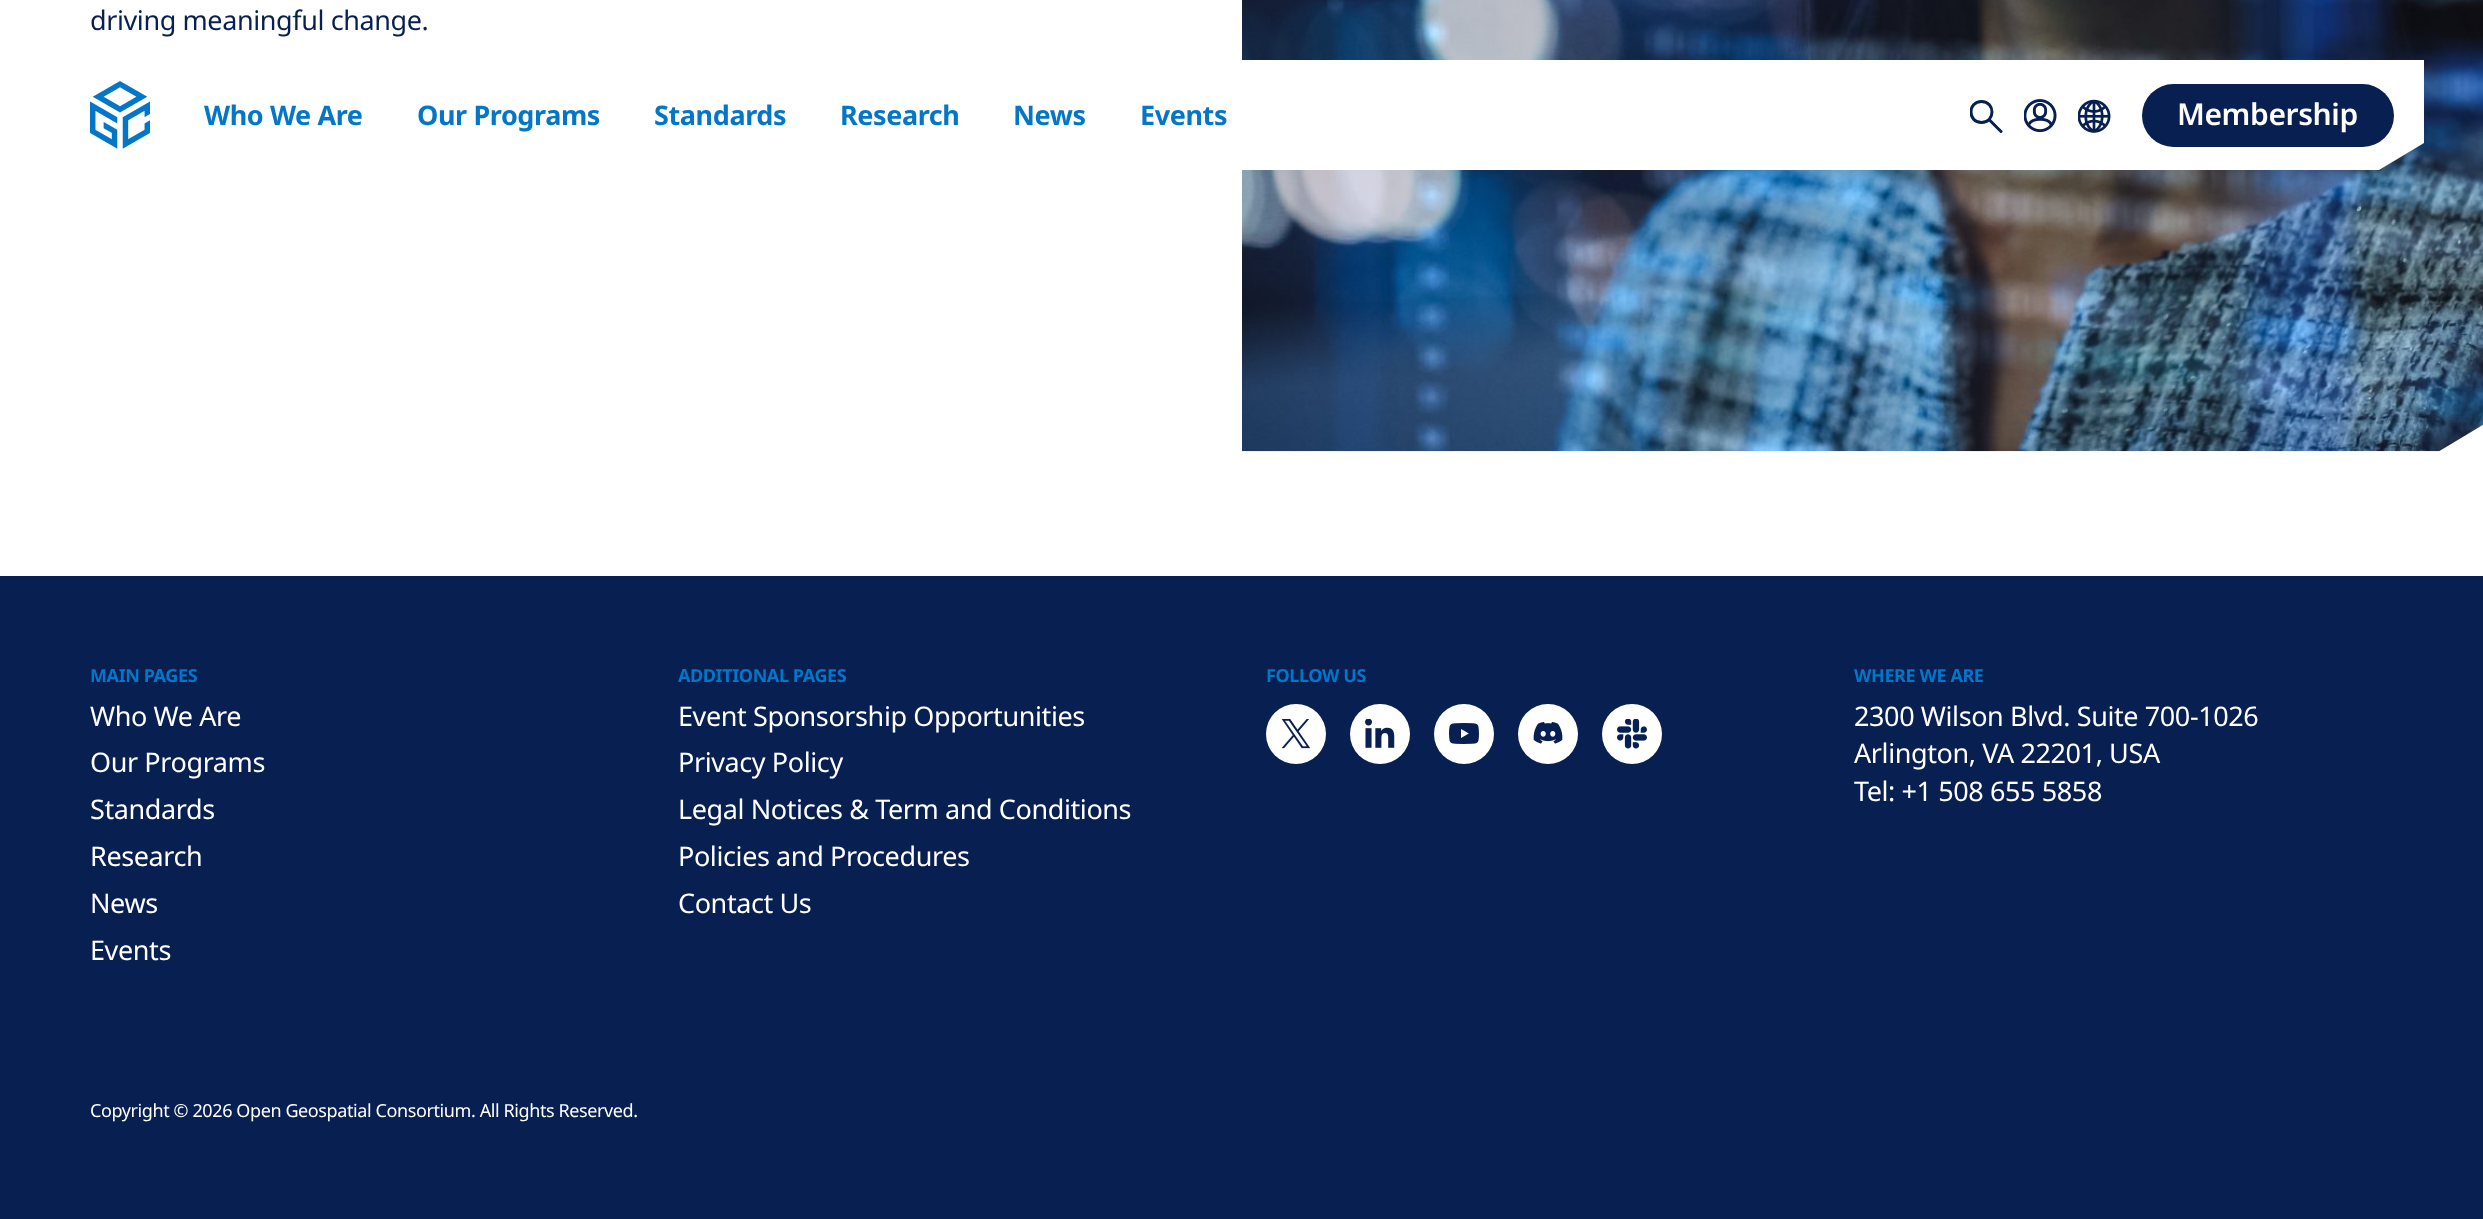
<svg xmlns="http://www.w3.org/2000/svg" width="2483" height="1219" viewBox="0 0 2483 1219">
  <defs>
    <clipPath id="clip1"><rect x="1970" y="99" width="33" height="35"/></clipPath>
  </defs>
  <rect width="100%" height="100%" fill="#ffffff"/>
  <text x="90" y="30" font-family="Noto Sans" font-size="27" letter-spacing="-0.4" fill="#071f51">driving meaningful change.</text>
  <image x="1242" y="0" width="1241" height="452" href="img1.png"/>
  <path d="M105 60L60 87V170H2379L2424 143V60Z" fill="#ffffff"/>
  <image x="90" y="81" width="60" height="68" href="img2.png"/>
  <text x="204" y="125" font-family="Noto Sans" font-size="27" font-weight="bold" letter-spacing="-0.4" fill="#0476c8">Who We Are</text>
  <text x="417" y="125" font-family="Noto Sans" font-size="27" font-weight="bold" letter-spacing="-0.4" fill="#0476c8">Our Programs</text>
  <text x="654" y="125" font-family="Noto Sans" font-size="27" font-weight="bold" letter-spacing="-0.4" fill="#0476c8">Standards</text>
  <text x="840" y="125" font-family="Noto Sans" font-size="27" font-weight="bold" letter-spacing="-0.4" fill="#0476c8">Research</text>
  <text x="1013" y="125" font-family="Noto Sans" font-size="27" font-weight="bold" letter-spacing="-0.4" fill="#0476c8">News</text>
  <text x="1140" y="125" font-family="Noto Sans" font-size="27" font-weight="bold" letter-spacing="-0.4" fill="#0476c8">Events</text>
  <g clip-path="url(#clip1)">
    <path d="M1981.5 122.5C1995.5 122.5 1995.5 101.5 1981.5 101.5C1967.5 101.5 1967.5 122.5 1981.5 122.5ZM2001 131.5L1989 119.5" fill="none" stroke="#071f51" stroke-width="3" stroke-linecap="round" stroke-linejoin="round"/>
  </g>
  <image x="2024" y="99" width="33" height="34" href="img3.png"/>
  <image x="2078" y="99" width="33" height="34" href="img4.png"/>
  <rect x="2142" y="84" width="252" height="63" rx="31.5" fill="#071f51"/>
  <text x="2177" y="125" font-family="Noto Sans" font-size="30" font-weight="600" letter-spacing="-0.4" fill="#ffffff">Membership</text>
  <rect x="0" y="576" width="2483" height="643" fill="#071f51"/>
  <text x="90" y="682" font-family="Noto Sans" font-size="18" font-weight="bold" letter-spacing="-0.4" fill="#0476c8">MAIN PAGES</text>
  <text x="90" y="726" font-family="Noto Sans" font-size="27" letter-spacing="-0.4" fill="#ffffff">Who We Are</text>
  <text x="90" y="772" font-family="Noto Sans" font-size="27" letter-spacing="-0.4" fill="#ffffff">Our Programs</text>
  <text x="90" y="819" font-family="Noto Sans" font-size="27" letter-spacing="-0.4" fill="#ffffff">Standards</text>
  <text x="90" y="866" font-family="Noto Sans" font-size="27" letter-spacing="-0.4" fill="#ffffff">Research</text>
  <text x="90" y="913" font-family="Noto Sans" font-size="27" letter-spacing="-0.4" fill="#ffffff">News</text>
  <text x="90" y="960" font-family="Noto Sans" font-size="27" letter-spacing="-0.4" fill="#ffffff">Events</text>
  <text x="678" y="682" font-family="Noto Sans" font-size="18" font-weight="bold" letter-spacing="-0.4" fill="#0476c8">ADDITIONAL PAGES</text>
  <text x="678" y="726" font-family="Noto Sans" font-size="27" letter-spacing="-0.4" fill="#ffffff">Event Sponsorship Opportunities</text>
  <text x="678" y="772" font-family="Noto Sans" font-size="27" letter-spacing="-0.4" fill="#ffffff">Privacy Policy</text>
  <text x="678" y="819" font-family="Noto Sans" font-size="27" letter-spacing="-0.4" fill="#ffffff">Legal Notices &amp; Term and Conditions</text>
  <text x="678" y="866" font-family="Noto Sans" font-size="27" letter-spacing="-0.4" fill="#ffffff">Policies and Procedures</text>
  <text x="678" y="913" font-family="Noto Sans" font-size="27" letter-spacing="-0.4" fill="#ffffff">Contact Us</text>
  <text x="1266" y="682" font-family="Noto Sans" font-size="18" font-weight="bold" letter-spacing="-0.4" fill="#0476c8">FOLLOW US</text>
  <circle cx="1296" cy="734" r="30" fill="#ffffff"/>
  <image x="1281" y="719" width="30" height="30" href="img5.png"/>
  <circle cx="1380" cy="734" r="30" fill="#ffffff"/>
  <image x="1365" y="719" width="30" height="29" href="img6.png"/>
  <circle cx="1464" cy="734" r="30" fill="#ffffff"/>
  <image x="1449" y="723" width="30" height="21" href="img7.png"/>
  <circle cx="1548" cy="734" r="30" fill="#ffffff"/>
  <image x="1533" y="722" width="30" height="22" href="img8.png"/>
  <circle cx="1632" cy="734" r="30" fill="#ffffff"/>
  <image x="1617" y="719" width="30" height="30" href="img9.png"/>
  <text x="1854" y="682" font-family="Noto Sans" font-size="18" font-weight="bold" letter-spacing="-0.4" fill="#0476c8">WHERE WE ARE</text>
  <text x="1854" y="726" font-family="Noto Sans" font-size="27" letter-spacing="-0.4" fill="#ffffff">2300 Wilson Blvd. Suite 700-1026</text>
  <text x="1854" y="763" font-family="Noto Sans" font-size="27" letter-spacing="-0.4" fill="#ffffff">Arlington, VA 22201, USA</text>
  <text x="1854" y="801" font-family="Noto Sans" font-size="27" letter-spacing="-0.4" fill="#ffffff">Tel: +1 508 655 5858</text>
  <text x="90" y="1117" font-family="Noto Sans" font-size="18" letter-spacing="-0.4" fill="#ffffff">Copyright © 2026 Open Geospatial Consortium. All Rights Reserved.</text>
</svg>
